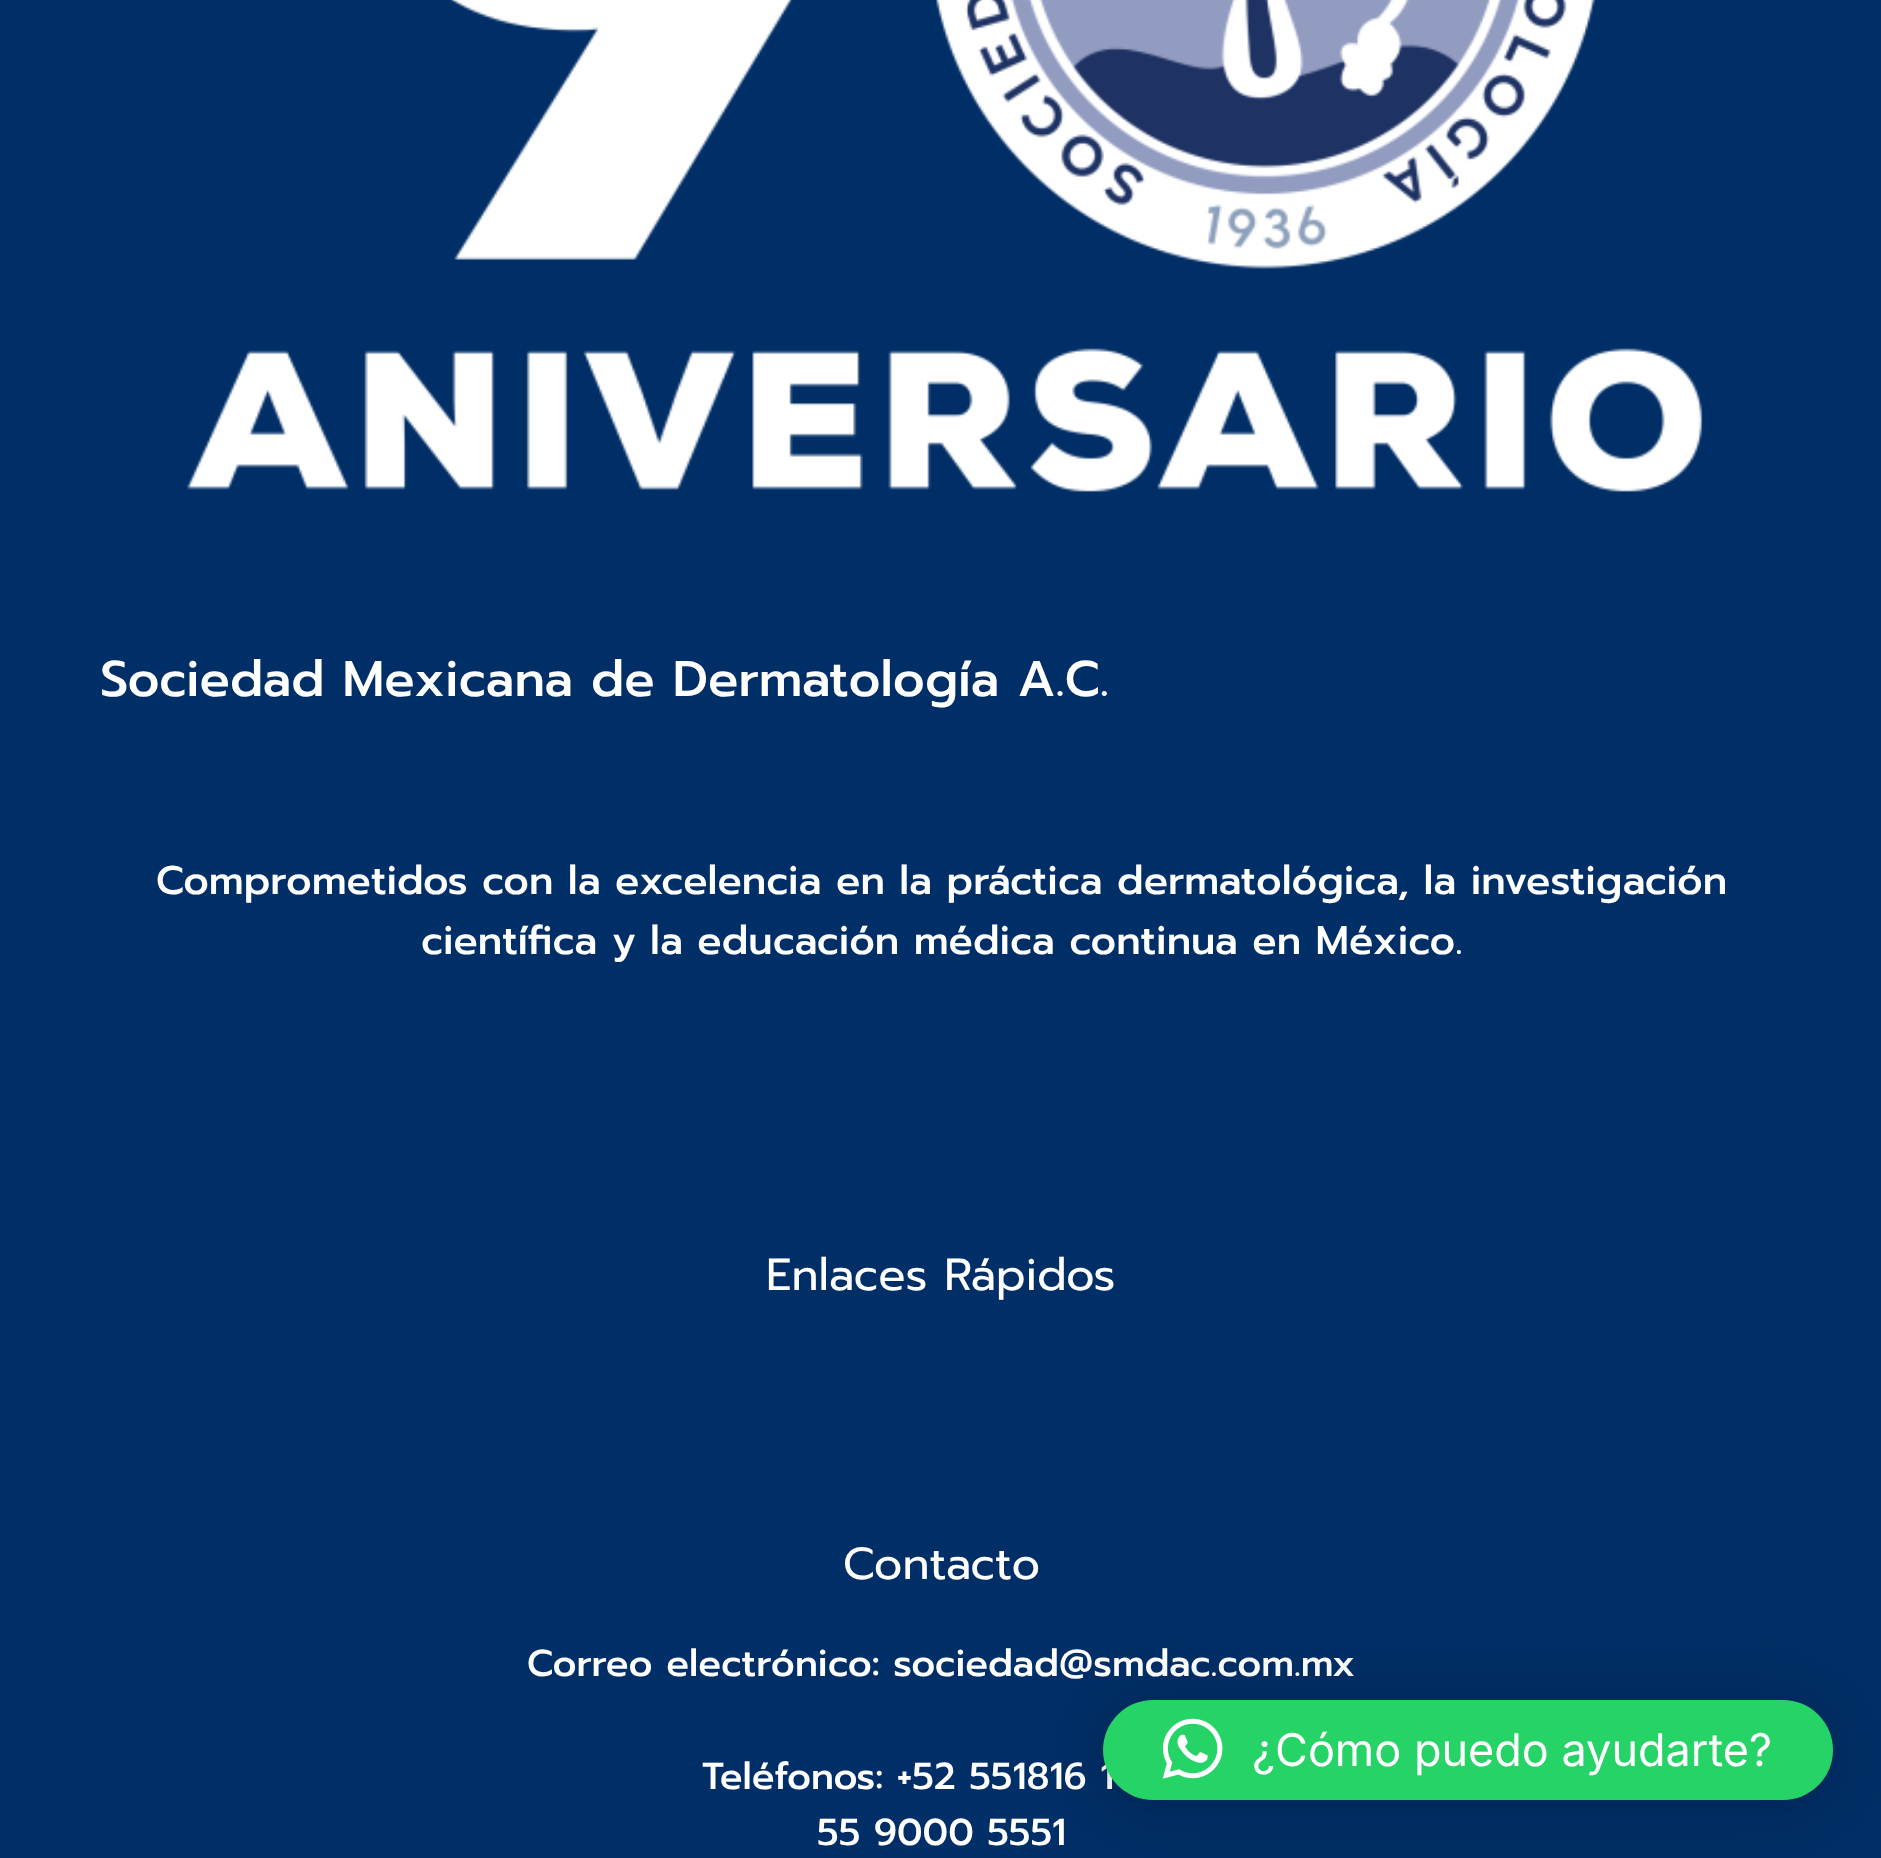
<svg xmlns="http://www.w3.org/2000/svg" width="1881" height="1858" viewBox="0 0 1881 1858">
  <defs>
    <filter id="blur1" x="-50%" y="-200%" width="200%" height="500%"><feGaussianBlur stdDeviation="40"/></filter>
    <filter id="blur2" x="-50%" y="-200%" width="200%" height="500%"><feGaussianBlur stdDeviation="7.5"/></filter>
  </defs>
  <rect width="100%" height="100%" fill="#002e66"/>
  <image x="187" y="0" width="1516" height="492" href="img1.png"/>
  <text x="100" y="696" font-family="Prompt" font-size="50" font-weight="500" fill="#ffffff">Sociedad Mexicana de Dermatología A.C.</text>
  <text x="156" y="894" font-family="Prompt" font-size="40" font-weight="500" fill="#ffffff">Comprometidos con la excelencia en la práctica dermatológica, la investigación</text>
  <text x="421" y="954" font-family="Prompt" font-size="40" font-weight="500" fill="#ffffff">científica y la educación médica continua en México.</text>
  <text x="766" y="1290" font-family="Prompt" font-size="45" fill="#ffffff">Enlaces Rápidos</text>
  <text x="843" y="1579" font-family="Prompt" font-size="45" fill="#ffffff">Contacto</text>
  <text x="527" y="1676" font-family="Prompt" font-size="37.5" font-weight="500" fill="#ffffff">Correo electrónico: sociedad@smdac.com.mx</text>
  <text x="702" y="1789" font-family="Prompt" font-size="37.5" font-weight="500" fill="#ffffff">Teléfonos: +52 551816 1</text>
  <text x="817" y="1845" font-family="Prompt" font-size="37.5" font-weight="500" fill="#ffffff">55 9000 5551</text>
  <rect x="1103" y="1705" width="730" height="100" rx="50" fill="#000000" fill-opacity="0.16" filter="url(#blur1)"/>
  <rect x="1103" y="1703" width="730" height="100" rx="50" fill="#000000" fill-opacity="0.06" filter="url(#blur2)"/>
  <rect x="1103" y="1700" width="730" height="100" rx="50" fill="#25d366"/>
  <image x="1162" y="1718" width="61" height="61" href="img2.png"/>
  <text x="1252" y="1766" font-family="Inter" font-size="45" fill="#ffffff">¿Cómo puedo ayudarte?</text>
</svg>
